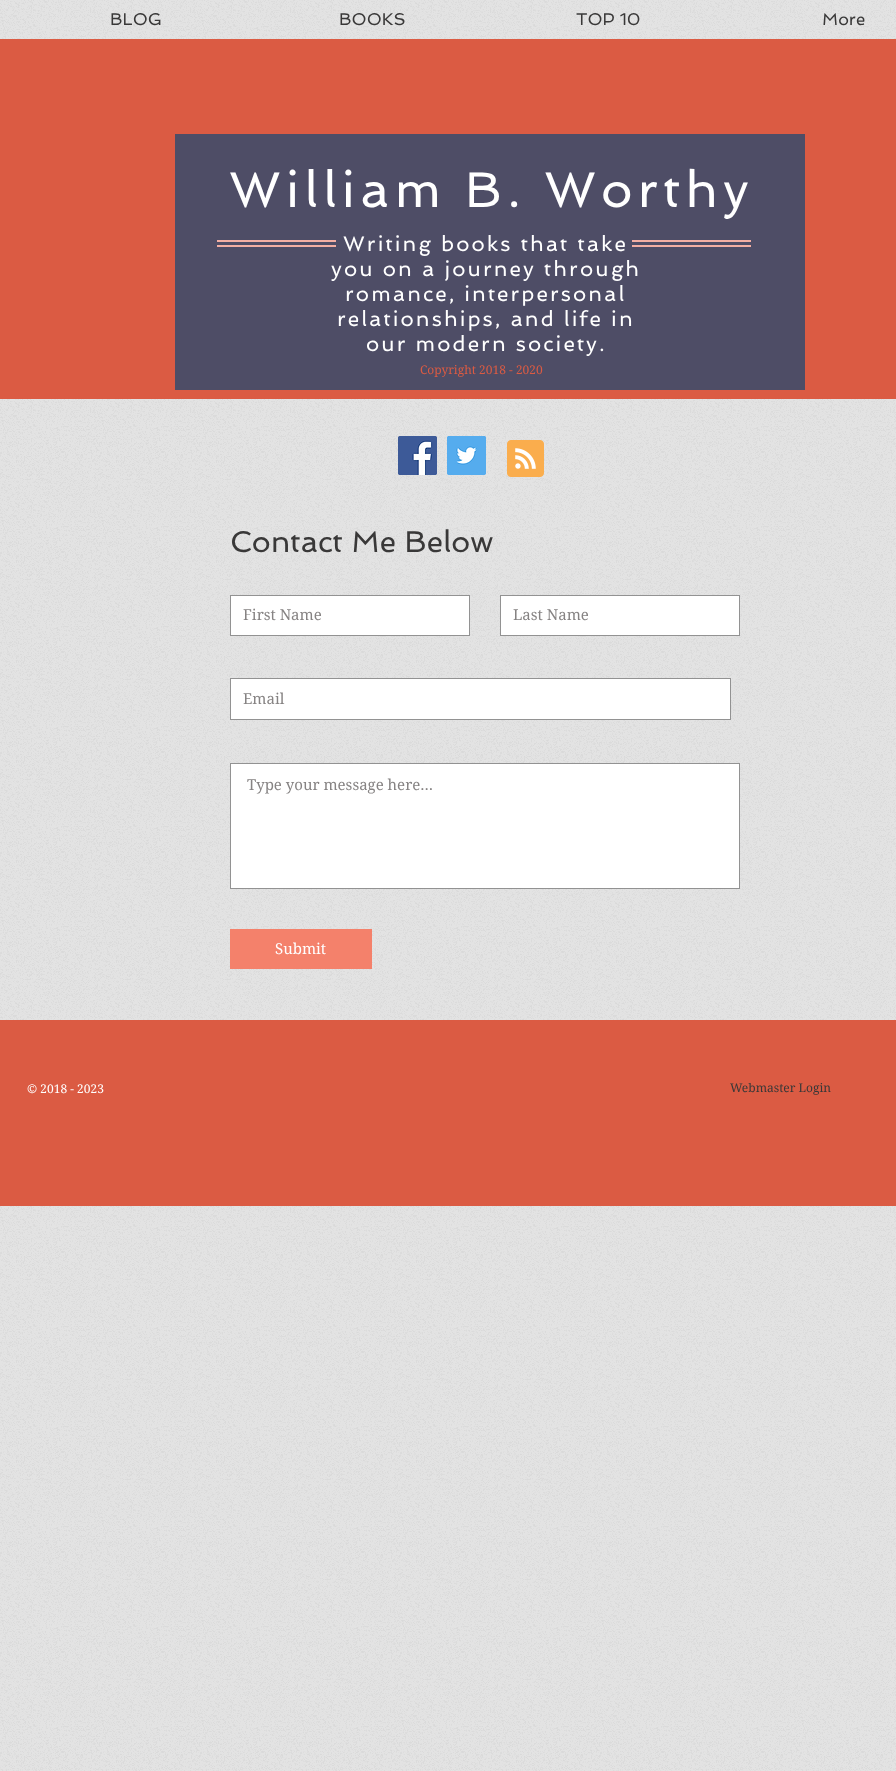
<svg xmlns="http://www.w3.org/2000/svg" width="896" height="1771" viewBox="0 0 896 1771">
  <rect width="100%" height="100%" fill="#e3e3e3"/>
  <image x="0" y="0" width="896" height="1771" href="img1.png"/>
  <text x="110" y="25" font-family="Spinnaker" font-size="17" fill="#393838">BLOG</text>
  <text x="339" y="25" font-family="Spinnaker" font-size="17" fill="#393838">BOOKS</text>
  <text x="576" y="25" font-family="Spinnaker" font-size="17" fill="#393838">TOP 10</text>
  <text x="822" y="25" font-family="Spinnaker" font-size="17" fill="#393838">More</text>
  <rect x="0" y="39" width="896" height="360" fill="#db5b43"/>
  <rect x="175" y="134" width="630" height="256" fill="#4e4d66"/>
  <text x="229" y="207" font-family="Spinnaker" font-size="50" letter-spacing="5" fill="#ffffff">William B. Worthy</text>
  <rect x="217" y="240" width="119" height="2" fill="#f4b0a4"/>
  <rect x="217" y="245" width="119" height="2" fill="#f4b0a4"/>
  <text x="343" y="251" font-family="Spinnaker" font-size="21" letter-spacing="2.1" fill="#ffffff">Writing books that take</text>
  <text x="331" y="276" font-family="Spinnaker" font-size="21" letter-spacing="2.1" fill="#ffffff">you on a journey through</text>
  <text x="345" y="301" font-family="Spinnaker" font-size="21" letter-spacing="2.1" fill="#ffffff">romance, interpersonal</text>
  <text x="337" y="326" font-family="Spinnaker" font-size="21" letter-spacing="2.1" fill="#ffffff">relationships, and life in</text>
  <text x="366" y="351" font-family="Spinnaker" font-size="21" letter-spacing="2.1" fill="#ffffff">our modern society.</text>
  <rect x="632" y="240" width="119" height="2" fill="#f4b0a4"/>
  <rect x="632" y="245" width="119" height="2" fill="#f4b0a4"/>
  <text x="420" y="374" font-family="'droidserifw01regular'" font-size="12" fill="#db5b43">Copyright 2018 - 2020</text>
  <image x="398" y="436" width="39" height="39" href="img2.png"/>
  <image x="447" y="436" width="39" height="39" href="img3.png"/>
  <image x="507" y="440" width="37" height="37" href="img4.png"/>
  <text x="230" y="552" font-family="Spinnaker" font-size="30" fill="#393838">Contact Me Below</text>
  <rect x="230.5" y="595.5" width="239" height="40" fill="#ffffff" stroke="#929292"/>
  <text x="243" y="620" font-family="'droidserifw01regular'" font-size="15" fill="#868383">First Name</text>
  <rect x="500.5" y="595.5" width="239" height="40" fill="#ffffff" stroke="#929292"/>
  <text x="513" y="620" font-family="'droidserifw01regular'" font-size="15" fill="#868383">Last Name</text>
  <rect x="230.5" y="678.5" width="500" height="41" fill="#ffffff" stroke="#929292"/>
  <text x="243" y="704" font-family="'droidserifw01regular'" font-size="15" fill="#868383">Email</text>
  <rect x="230.5" y="763.5" width="509" height="125" fill="#ffffff" stroke="#929292"/>
  <text x="247" y="790" font-family="'droidserifw01regular'" font-size="15" fill="#868383">Type your message here...</text>
  <rect x="230" y="929" width="142" height="40" fill="#f4816b"/>
  <text x="275" y="954" font-family="'droidserifw01regular'" font-size="15" fill="#ffffff">Submit</text>
  <rect x="0" y="1020" width="896" height="186" fill="#db5b43"/>
  <text x="27" y="1093" font-family="'droidserifw01regular'" font-size="12" fill="#ffffff">© 2018 - 2023</text>
  <text x="730" y="1092" font-family="'droidserifw01regular'" font-size="12" fill="#393838">Webmaster Login</text>
</svg>
